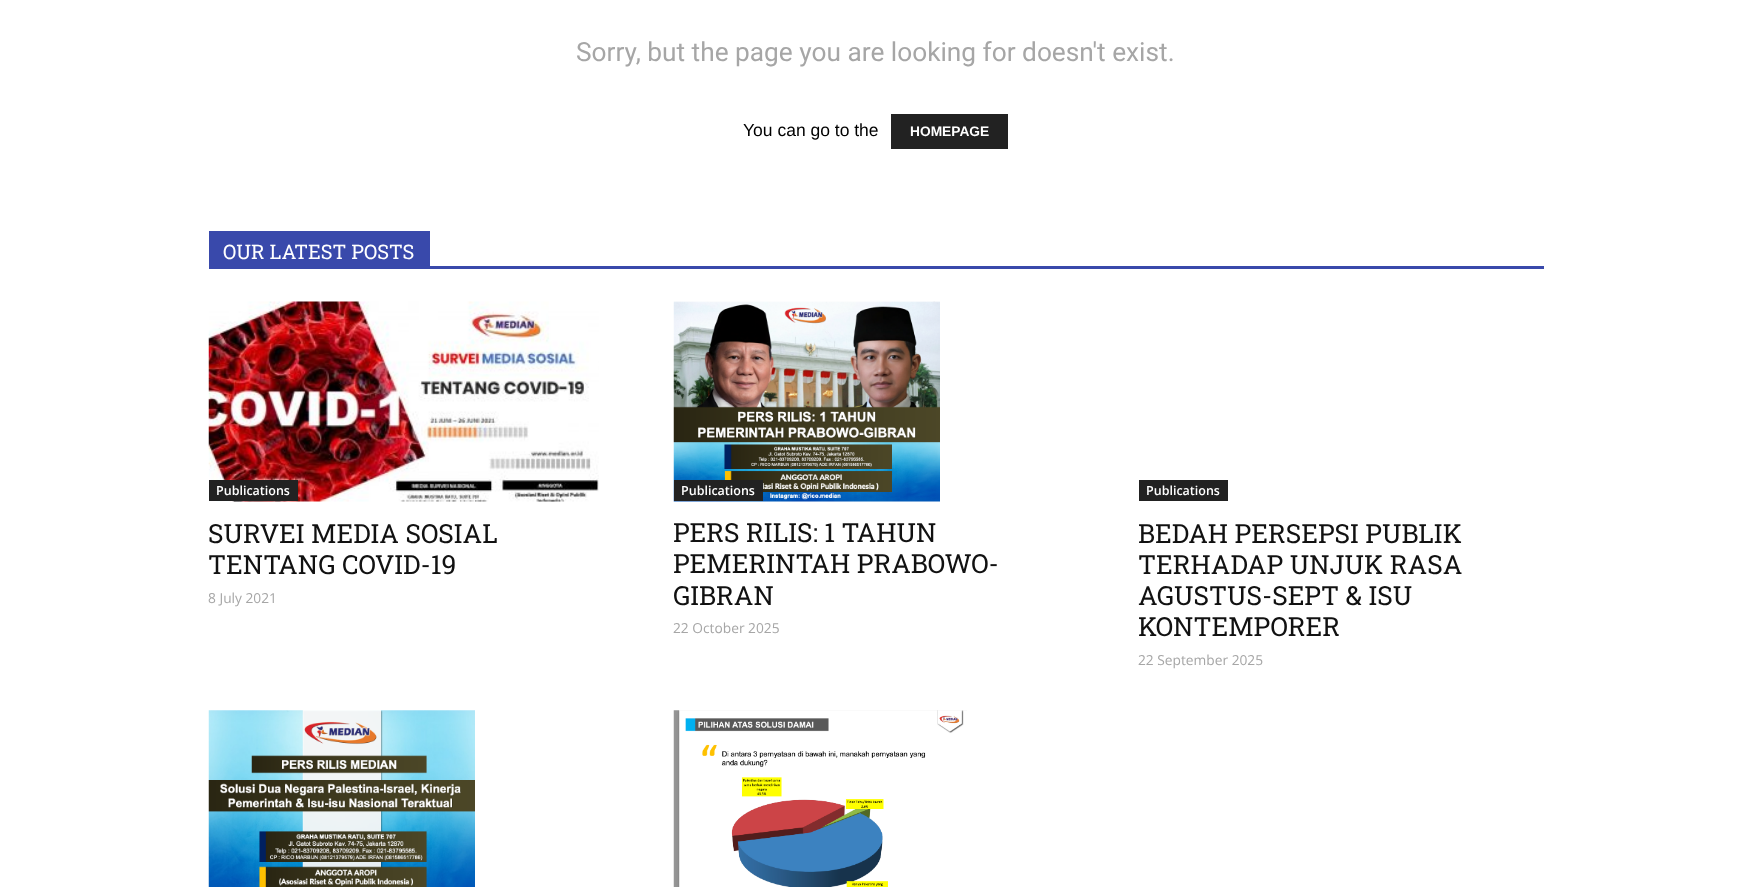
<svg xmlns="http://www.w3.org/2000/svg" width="1751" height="887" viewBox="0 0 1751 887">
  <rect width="100%" height="100%" fill="#ffffff"/>
  <text x="576" y="61" font-family="Roboto" font-size="26.25" fill="#a6a6a6">Sorry, but the page you are looking for doesn't exist.</text>
  <text x="743" y="136" font-family="Liberation Sans" font-size="17.5" fill="#000000">You can go to the</text>
  <rect x="891" y="114" width="117" height="35" fill="#222222"/>
  <text x="910" y="136" font-family="Liberation Sans" font-size="13.75" font-weight="bold" fill="#ffffff">HOMEPAGE</text>
  <rect x="209" y="266" width="1335" height="3" fill="#3949ab"/>
  <rect x="209" y="231" width="221" height="35" fill="#3949ab"/>
  <text x="223" y="259" font-family="Roboto Slab" font-size="20" fill="#ffffff">OUR LATEST POSTS</text>
  <image x="208" y="301" width="391" height="201" href="img1.png"/>
  <rect x="209" y="480" width="89" height="21" fill="#222222"/>
  <text x="216" y="495" font-family="Open Sans" font-size="12.5" font-weight="600" fill="#ffffff">Publications</text>
  <text x="208" y="543" font-family="Roboto Slab" font-size="26.25" fill="#111111">SURVEI MEDIA SOSIAL</text>
  <text x="208" y="574" font-family="Roboto Slab" font-size="26.25" fill="#111111">TENTANG COVID-19</text>
  <text x="208" y="603" font-family="Open Sans" font-size="13.75" fill="#a6a6a6">8 July 2021</text>
  <image x="673" y="301" width="267" height="201" href="img2.png"/>
  <rect x="674" y="480" width="89" height="21" fill="#222222"/>
  <text x="681" y="495" font-family="Open Sans" font-size="12.5" font-weight="600" fill="#ffffff">Publications</text>
  <text x="673" y="542" font-family="Roboto Slab" font-size="26.25" fill="#111111">PERS RILIS: 1 TAHUN</text>
  <text x="673" y="573" font-family="Roboto Slab" font-size="26.25" fill="#111111">PEMERINTAH PRABOWO-</text>
  <text x="673" y="605" font-family="Roboto Slab" font-size="26.25" fill="#111111">GIBRAN</text>
  <text x="673" y="633" font-family="Open Sans" font-size="13.75" fill="#a6a6a6">22 October 2025</text>
  <rect x="1139" y="480" width="89" height="21" fill="#222222"/>
  <text x="1146" y="495" font-family="Open Sans" font-size="12.5" font-weight="600" fill="#ffffff">Publications</text>
  <text x="1138" y="543" font-family="Roboto Slab" font-size="26.25" fill="#111111">BEDAH PERSEPSI PUBLIK</text>
  <text x="1138" y="574" font-family="Roboto Slab" font-size="26.25" fill="#111111">TERHADAP UNJUK RASA</text>
  <text x="1138" y="605" font-family="Roboto Slab" font-size="26.25" fill="#111111">AGUSTUS-SEPT &amp; ISU</text>
  <text x="1138" y="636" font-family="Roboto Slab" font-size="26.25" fill="#111111">KONTEMPORER</text>
  <text x="1138" y="665" font-family="Open Sans" font-size="13.75" fill="#a6a6a6">22 September 2025</text>
  <image x="208" y="710" width="267" height="177" href="img3.png"/>
  <image x="673" y="710" width="294" height="177" href="img4.png"/>
</svg>
